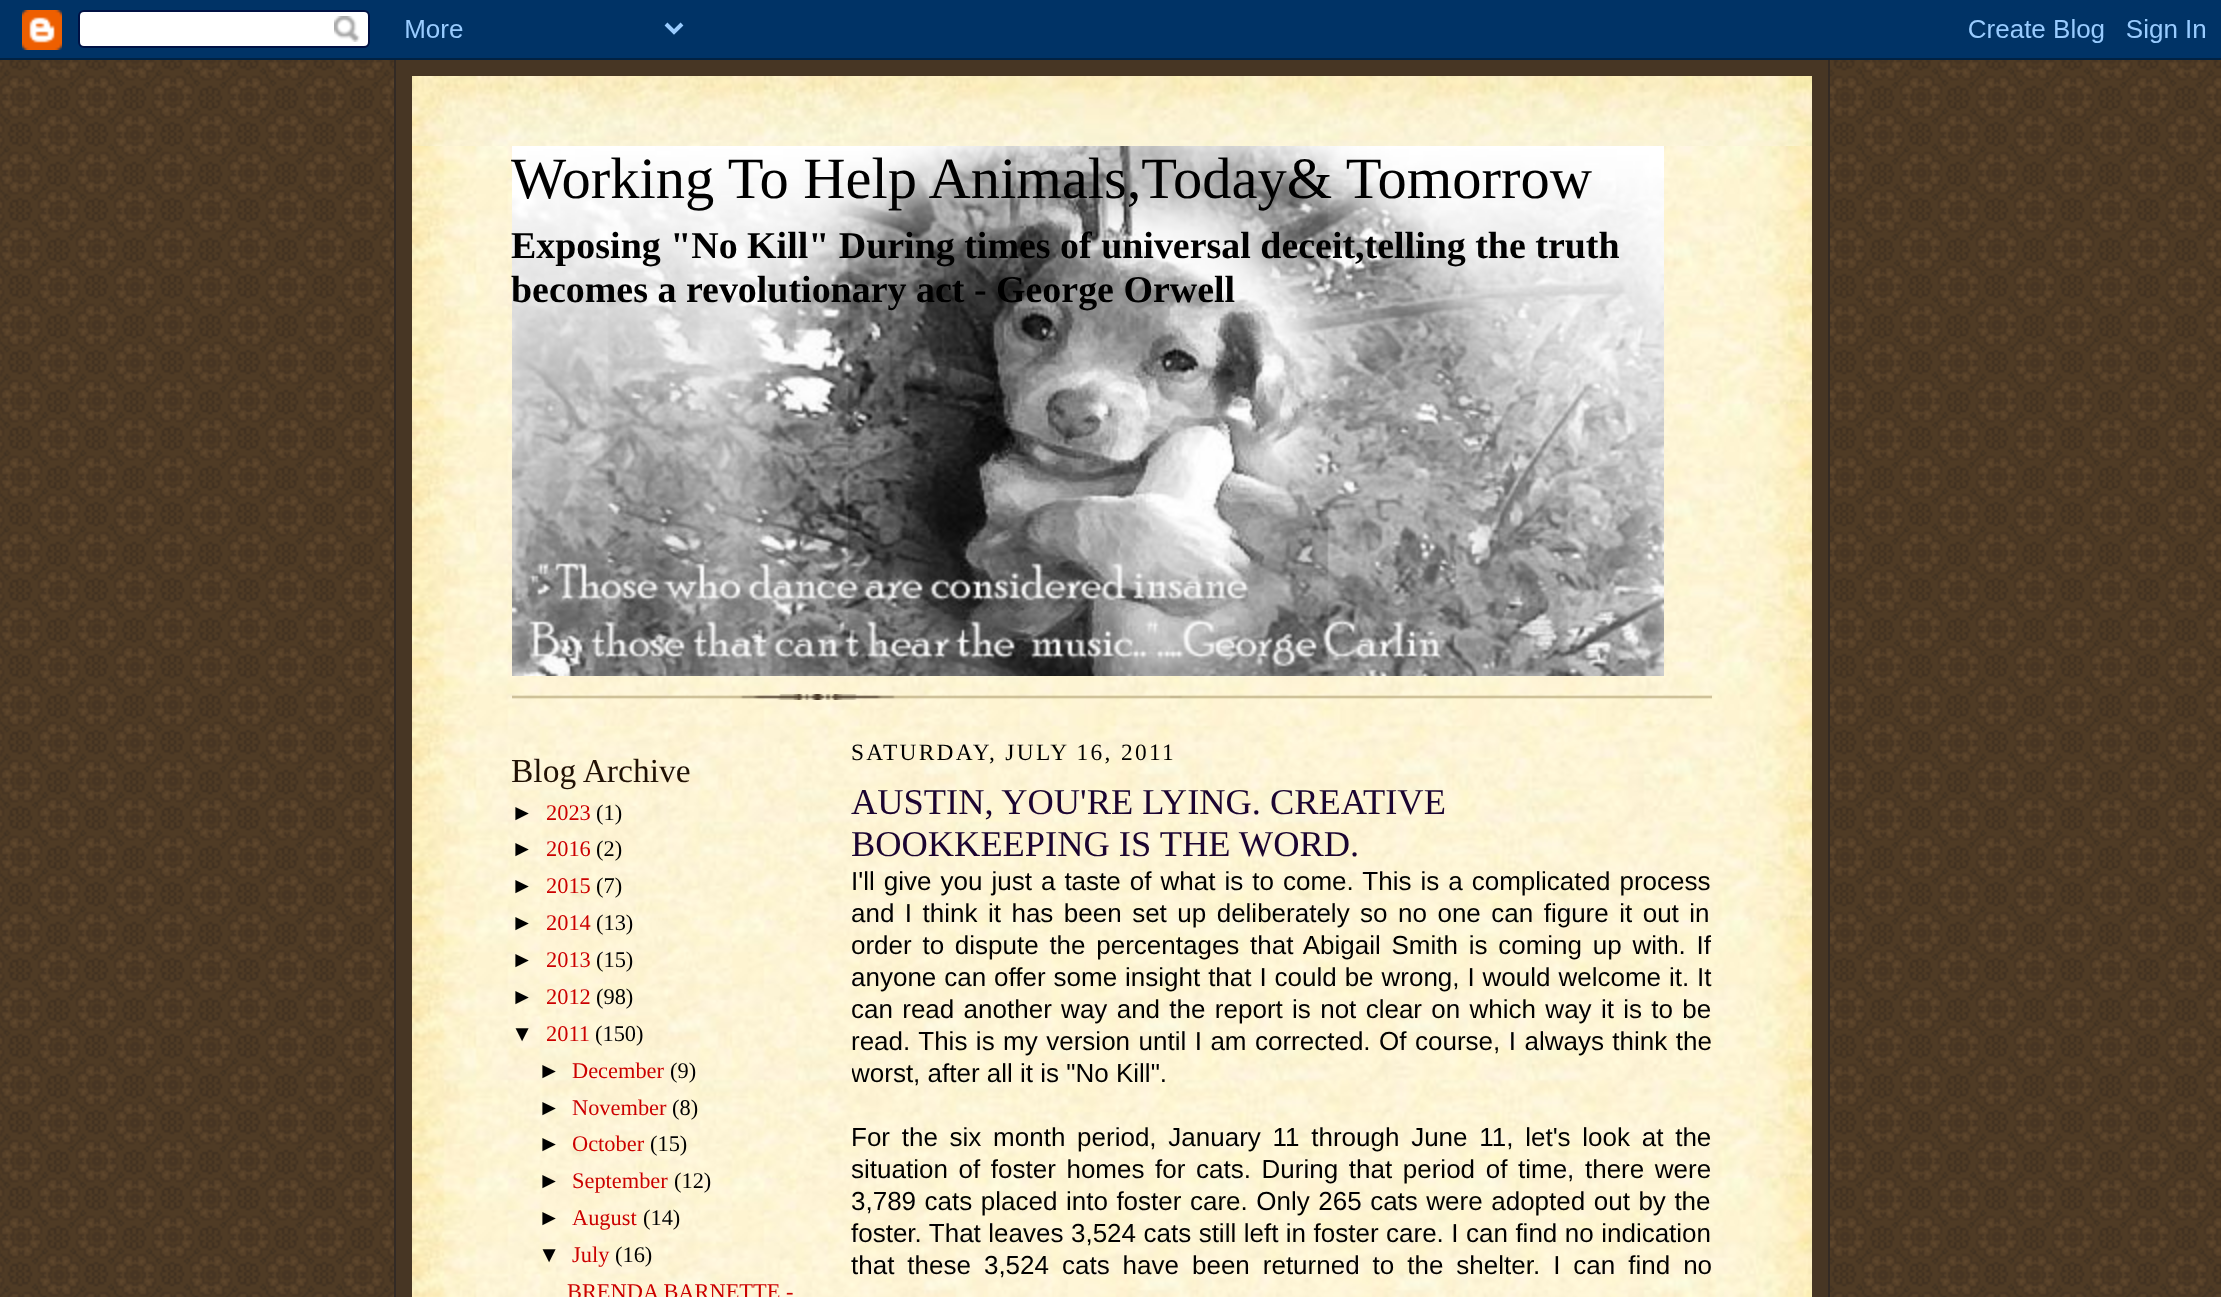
<svg xmlns="http://www.w3.org/2000/svg" width="2221" height="1297" viewBox="0 0 2221 1297">
  <defs>
    <clipPath id="clip1"><rect x="852" y="724" width="860" height="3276"/></clipPath>
  </defs>
  <rect width="100%" height="100%" fill="#ffffff"/>
  <image x="0" y="60" width="2221" height="1237" href="img1.png"/>
  <image x="0" y="0" width="2221" height="60" href="img2.png"/>
  <rect x="396" y="60" width="1432" height="1237" fill="#473624"/>
  <rect x="1828" y="60" width="2" height="1237" fill="#332a24"/>
  <rect x="394" y="60" width="2" height="1237" fill="#332a24"/>
  <image x="412" y="76" width="1400" height="70" href="img3.png"/>
  <image x="412" y="146" width="1400" height="1151" href="img4.png"/>
  <image x="512" y="694" width="1200" height="6" href="img5.png"/>
  <image x="512" y="146" width="1152" height="530" href="img6.png"/>
  <text x="511" y="198" font-family="Liberation Serif" font-size="58.5" fill="#000000">Working To Help Animals,Today&amp; Tomorrow</text>
  <text x="511" y="258" font-family="Liberation Serif" font-size="37.95" font-weight="bold" fill="#000000">Exposing "No Kill" During times of universal deceit,telling the truth</text>
  <text x="511" y="302" font-family="Liberation Serif" font-size="37.95" font-weight="bold" fill="#000000">becomes a revolutionary act - George Orwell</text>
  <text x="511" y="782" font-family="Liberation Serif" font-size="33.5" fill="#211104">Blog Archive</text>
  <text x="511" y="820" font-family="Liberation Sans" font-size="22.4" fill="#000000">►</text>
  <text x="546" y="820" font-family="Liberation Serif" font-size="22.4" fill="#cc0000">2023</text>
  <text x="596" y="820" font-family="Liberation Serif" font-size="22.4" fill="#000000">(1)</text>
  <text x="511" y="856" font-family="Liberation Sans" font-size="22.4" fill="#000000">►</text>
  <text x="546" y="856" font-family="Liberation Serif" font-size="22.4" fill="#cc0000">2016</text>
  <text x="596" y="856" font-family="Liberation Serif" font-size="22.4" fill="#000000">(2)</text>
  <text x="511" y="893" font-family="Liberation Sans" font-size="22.4" fill="#000000">►</text>
  <text x="546" y="893" font-family="Liberation Serif" font-size="22.4" fill="#cc0000">2015</text>
  <text x="596" y="893" font-family="Liberation Serif" font-size="22.4" fill="#000000">(7)</text>
  <text x="511" y="930" font-family="Liberation Sans" font-size="22.4" fill="#000000">►</text>
  <text x="546" y="930" font-family="Liberation Serif" font-size="22.4" fill="#cc0000">2014</text>
  <text x="596" y="930" font-family="Liberation Serif" font-size="22.4" fill="#000000">(13)</text>
  <text x="511" y="967" font-family="Liberation Sans" font-size="22.4" fill="#000000">►</text>
  <text x="546" y="967" font-family="Liberation Serif" font-size="22.4" fill="#cc0000">2013</text>
  <text x="596" y="967" font-family="Liberation Serif" font-size="22.4" fill="#000000">(15)</text>
  <text x="511" y="1004" font-family="Liberation Sans" font-size="22.4" fill="#000000">►</text>
  <text x="546" y="1004" font-family="Liberation Serif" font-size="22.4" fill="#cc0000">2012</text>
  <text x="596" y="1004" font-family="Liberation Serif" font-size="22.4" fill="#000000">(98)</text>
  <text x="511" y="1041" font-family="Liberation Sans" font-size="22.4" fill="#000000">▼</text>
  <text x="546" y="1041" font-family="Liberation Serif" font-size="22.4" fill="#cc0000">2011</text>
  <text x="595" y="1041" font-family="Liberation Serif" font-size="22.4" fill="#000000">(150)</text>
  <text x="538" y="1078" font-family="Liberation Sans" font-size="22.4" fill="#000000">►</text>
  <text x="572" y="1078" font-family="Liberation Serif" font-size="22.4" fill="#cc0000">December</text>
  <text x="670" y="1078" font-family="Liberation Serif" font-size="22.4" fill="#000000">(9)</text>
  <text x="538" y="1115" font-family="Liberation Sans" font-size="22.4" fill="#000000">►</text>
  <text x="572" y="1115" font-family="Liberation Serif" font-size="22.4" fill="#cc0000">November</text>
  <text x="672" y="1115" font-family="Liberation Serif" font-size="22.4" fill="#000000">(8)</text>
  <text x="538" y="1151" font-family="Liberation Sans" font-size="22.4" fill="#000000">►</text>
  <text x="572" y="1151" font-family="Liberation Serif" font-size="22.4" fill="#cc0000">October</text>
  <text x="650" y="1151" font-family="Liberation Serif" font-size="22.4" fill="#000000">(15)</text>
  <text x="538" y="1188" font-family="Liberation Sans" font-size="22.4" fill="#000000">►</text>
  <text x="572" y="1188" font-family="Liberation Serif" font-size="22.4" fill="#cc0000">September</text>
  <text x="674" y="1188" font-family="Liberation Serif" font-size="22.4" fill="#000000">(12)</text>
  <text x="538" y="1225" font-family="Liberation Sans" font-size="22.4" fill="#000000">►</text>
  <text x="572" y="1225" font-family="Liberation Serif" font-size="22.4" fill="#cc0000">August</text>
  <text x="643" y="1225" font-family="Liberation Serif" font-size="22.4" fill="#000000">(14)</text>
  <text x="538" y="1262" font-family="Liberation Sans" font-size="22.4" fill="#000000">▼</text>
  <text x="572" y="1262" font-family="Liberation Serif" font-size="22.4" fill="#cc0000">July</text>
  <text x="615" y="1262" font-family="Liberation Serif" font-size="22.4" fill="#000000">(16)</text>
  <text x="567" y="1299" font-family="Liberation Serif" font-size="22.4" fill="#cc0000">BRENDA BARNETTE -</text>
  <text x="851" y="760" font-family="Liberation Serif" font-size="23.4" letter-spacing="2.3" fill="#000000">SATURDAY, JULY 16, 2011</text>
  <text x="851" y="814" font-family="Liberation Serif" font-size="36.4" fill="#1b0431">AUSTIN, YOU'RE LYING. CREATIVE</text>
  <text x="851" y="856" font-family="Liberation Serif" font-size="36.4" fill="#1b0431">BOOKKEEPING IS THE WORD.</text>
  <text x="851" y="890" word-spacing="1.8" font-family="Liberation Sans" font-size="26" fill="#000000">I'll give you just a taste of what is to come. This is a complicated process</text>
  <text x="851" y="922" word-spacing="3.25" font-family="Liberation Sans" font-size="26" fill="#000000">and I think it has been set up deliberately so no one can figure it out in</text>
  <text x="851" y="954" word-spacing="3.5" font-family="Liberation Sans" font-size="26" fill="#000000">order to dispute the percentages that Abigail Smith is coming up with. If</text>
  <text x="851" y="986" word-spacing="0.7" font-family="Liberation Sans" font-size="26" fill="#000000">anyone can offer some insight that I could be wrong, I would welcome it. It</text>
  <text x="851" y="1018" word-spacing="2.1" font-family="Liberation Sans" font-size="26" fill="#000000">can read another way and the report is not clear on which way it is to be</text>
  <text x="851" y="1050" word-spacing="1.25" font-family="Liberation Sans" font-size="26" fill="#000000">read. This is my version until I am corrected. Of course, I always think the</text>
  <g clip-path="url(#clip1)">
    <text x="851" y="1082" font-family="Liberation Sans" font-size="26" fill="#000000">worst, after all it is "No Kill".</text>
  </g>
  <text x="851" y="1146" word-spacing="4.5" font-family="Liberation Sans" font-size="26" fill="#000000">For the six month period, January 11 through June 11, let's look at the</text>
  <text x="851" y="1178" word-spacing="3.4" font-family="Liberation Sans" font-size="26" fill="#000000">situation of foster homes for cats. During that period of time, there were</text>
  <text x="851" y="1210" word-spacing="1.3" font-family="Liberation Sans" font-size="26" fill="#000000">3,789 cats placed into foster care. Only 265 cats were adopted out by the</text>
  <text x="851" y="1242" word-spacing="0.25" font-family="Liberation Sans" font-size="26" fill="#000000">foster. That leaves 3,524 cats still left in foster care. I can find no indication</text>
  <text x="851" y="1274" word-spacing="5.75" font-family="Liberation Sans" font-size="26" fill="#000000">that these 3,524 cats have been returned to the shelter. I can find no</text>
</svg>
